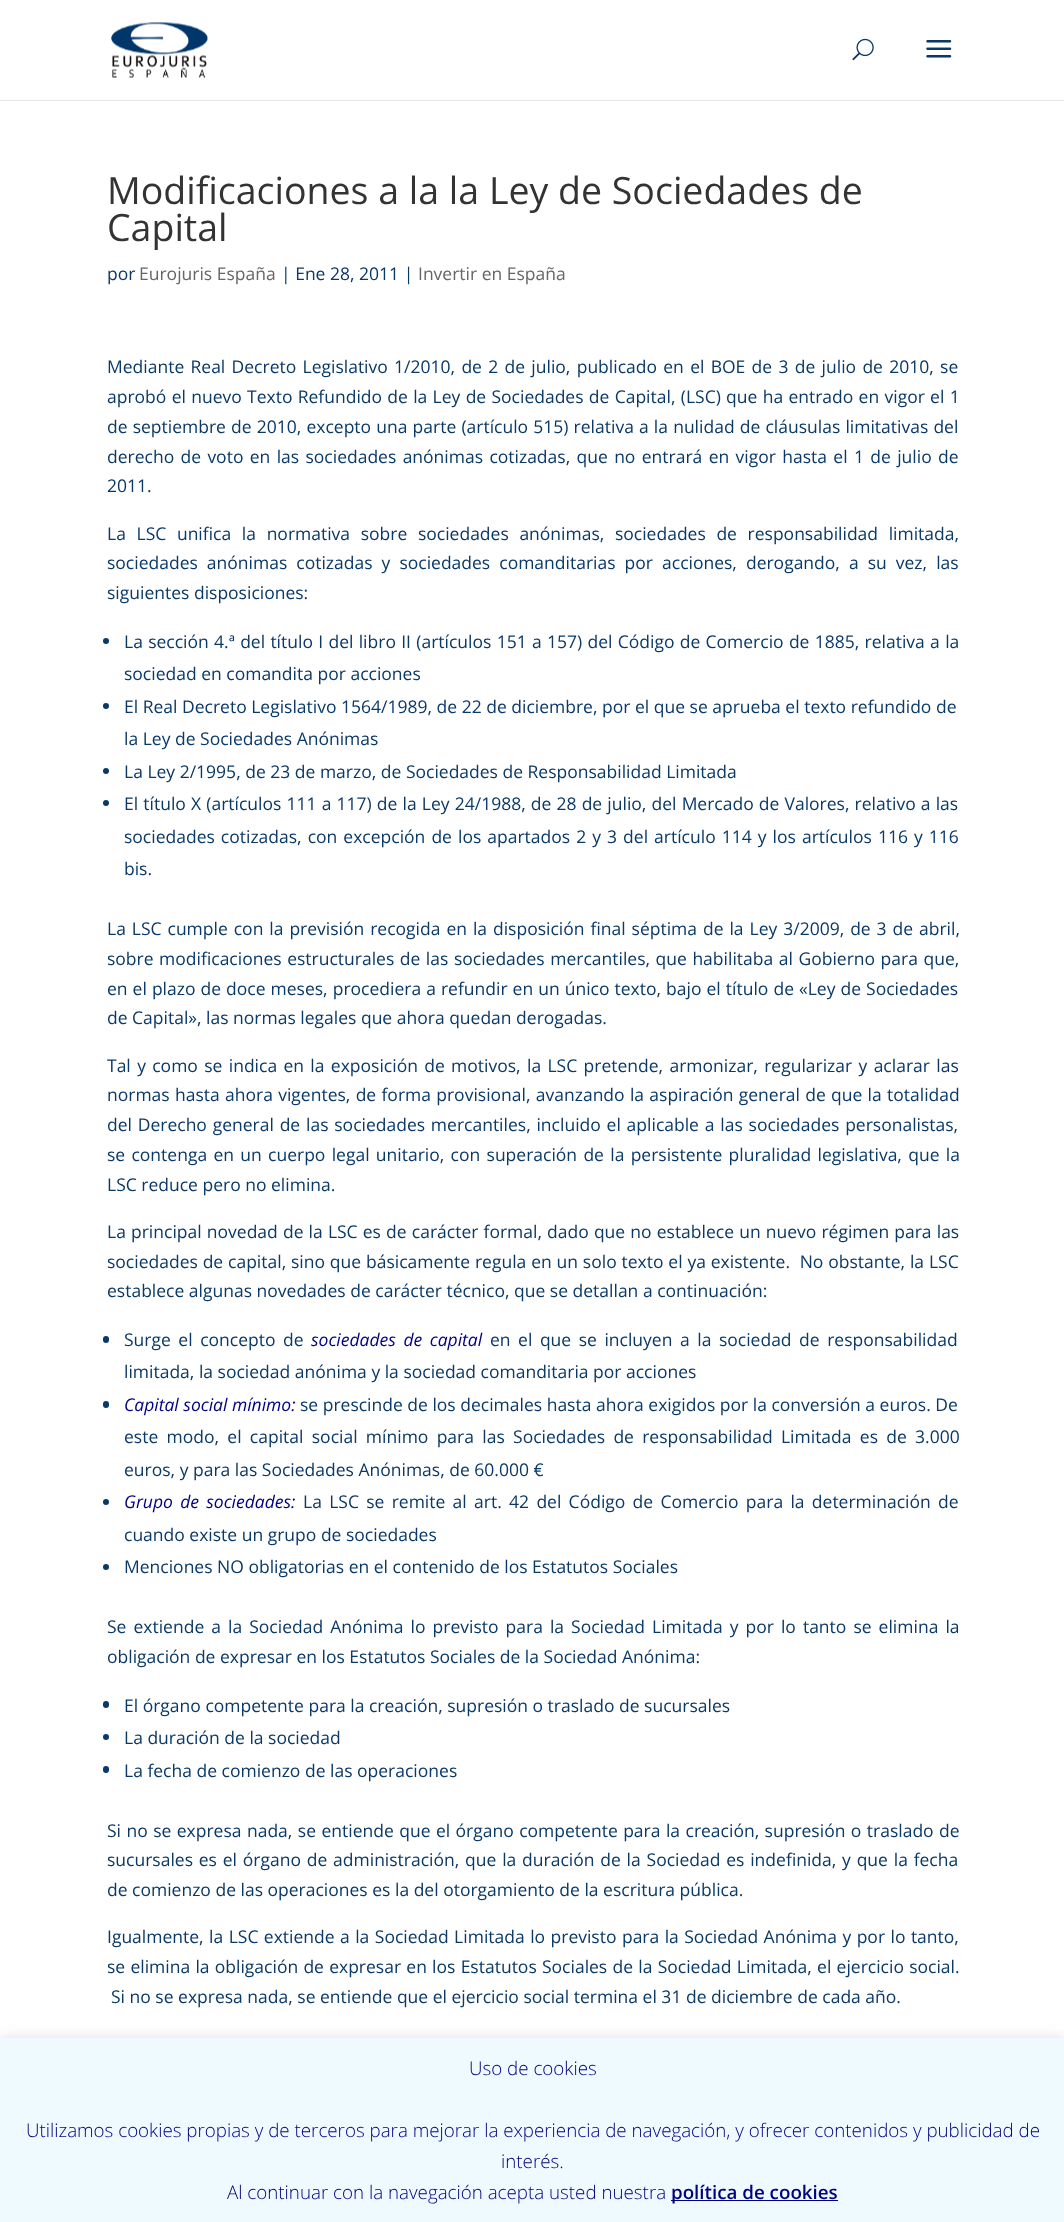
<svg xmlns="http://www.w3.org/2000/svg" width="1064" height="2222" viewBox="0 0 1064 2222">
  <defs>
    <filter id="blur1" x="-50%" y="-200%" width="200%" height="500%"><feGaussianBlur stdDeviation="6"/></filter>
  </defs>
  <rect width="100%" height="100%" fill="#ffffff"/>
  <rect x="0" y="100" width="1064" height="1" fill="#e6e6e6"/>
  <image x="111" y="22" width="97" height="56" href="img1.png"/>
  <image x="852" y="38" width="22" height="23" href="img2.png"/>
  <image x="926" y="40" width="26" height="18" href="img3.png"/>
  <text x="107" y="204" font-family="Open Sans" font-size="37.5" fill="#333333">Modificaciones a la la Ley de Sociedades de</text>
  <text x="107" y="241" font-family="Open Sans" font-size="37.5" fill="#333333">Capital</text>
  <text x="107" y="280" font-family="Open Sans" font-size="17.5" fill="#0a3968">por</text>
  <text x="139" y="280" font-family="Open Sans" font-size="17.5" fill="#666666">Eurojuris España</text>
  <text x="281" y="280" font-family="Open Sans" font-size="17.5" fill="#0a3968">| Ene 28, 2011 |</text>
  <text x="418" y="280" font-family="Open Sans" font-size="17.5" fill="#666666">Invertir en España</text>
  <text x="107" y="373" word-spacing="1.75" font-family="Open Sans" font-size="17.5" fill="#0a3968">Mediante Real Decreto Legislativo 1/2010, de 2 de julio, publicado en el BOE de 3 de julio de 2010, se</text>
  <text x="107" y="403" word-spacing="0.75" font-family="Open Sans" font-size="17.5" fill="#0a3968">aprobó el nuevo Texto Refundido de la Ley de Sociedades de Capital, (LSC) que ha entrado en vigor el 1</text>
  <text x="107" y="433" word-spacing="0.6" font-family="Open Sans" font-size="17.5" fill="#0a3968">de septiembre de 2010, excepto una parte (artículo 515) relativa a la nulidad de cláusulas limitativas del</text>
  <text x="107" y="463" word-spacing="1.8" font-family="Open Sans" font-size="17.5" fill="#0a3968">derecho de voto en las sociedades anónimas cotizadas, que no entrará en vigor hasta el 1 de julio de</text>
  <text x="107" y="492" font-family="Open Sans" font-size="17.5" fill="#0a3968">2011.</text>
  <text x="107" y="540" word-spacing="6.1" font-family="Open Sans" font-size="17.5" fill="#0a3968">La LSC unifica la normativa sobre sociedades anónimas, sociedades de responsabilidad limitada,</text>
  <text x="107" y="569" word-spacing="4.5" font-family="Open Sans" font-size="17.5" fill="#0a3968">sociedades anónimas cotizadas y sociedades comanditarias por acciones, derogando, a su vez, las</text>
  <text x="107" y="599" font-family="Open Sans" font-size="17.5" fill="#0a3968">siguientes disposiciones:</text>
  <circle cx="106" cy="641" r="3" fill="#0a3968"/>
  <text x="124" y="648" word-spacing="0.75" font-family="Open Sans" font-size="17.5" fill="#0a3968">La sección 4.ª del título I del libro II (artículos 151 a 157) del Código de Comercio de 1885, relativa a la</text>
  <text x="124" y="680" font-family="Open Sans" font-size="17.5" fill="#0a3968">sociedad en comandita por acciones</text>
  <circle cx="106" cy="706" r="3" fill="#0a3968"/>
  <text x="124" y="713" font-family="Open Sans" font-size="17.5" fill="#0a3968">El Real Decreto Legislativo 1564/1989, de 22 de diciembre, por el que se aprueba el texto refundido de</text>
  <text x="124" y="745" font-family="Open Sans" font-size="17.5" fill="#0a3968">la Ley de Sociedades Anónimas</text>
  <circle cx="106" cy="771" r="3" fill="#0a3968"/>
  <text x="124" y="778" font-family="Open Sans" font-size="17.5" fill="#0a3968">La Ley 2/1995, de 23 de marzo, de Sociedades de Responsabilidad Limitada</text>
  <circle cx="106" cy="803" r="3" fill="#0a3968"/>
  <text x="124" y="810" word-spacing="0.6" font-family="Open Sans" font-size="17.5" fill="#0a3968">El título X (artículos 111 a 117) de la Ley 24/1988, de 28 de julio, del Mercado de Valores, relativo a las</text>
  <text x="124" y="843" word-spacing="1.5" font-family="Open Sans" font-size="17.5" fill="#0a3968">sociedades cotizadas, con excepción de los apartados 2 y 3 del artículo 114 y los artículos 116 y 116</text>
  <text x="124" y="875" font-family="Open Sans" font-size="17.5" fill="#0a3968">bis.</text>
  <text x="107" y="935" word-spacing="1.4" font-family="Open Sans" font-size="17.5" fill="#0a3968">La LSC cumple con la previsión recogida en la disposición final séptima de la Ley 3/2009, de 3 de abril,</text>
  <text x="107" y="965" word-spacing="1" font-family="Open Sans" font-size="17.5" fill="#0a3968">sobre modificaciones estructurales de las sociedades mercantiles, que habilitaba al Gobierno para que,</text>
  <text x="107" y="995" word-spacing="0.5" font-family="Open Sans" font-size="17.5" fill="#0a3968">en el plazo de doce meses, procediera a refundir en un único texto, bajo el título de «Ley de Sociedades</text>
  <text x="107" y="1024" font-family="Open Sans" font-size="17.5" fill="#0a3968">de Capital», las normas legales que ahora quedan derogadas.</text>
  <text x="107" y="1072" word-spacing="1.8" font-family="Open Sans" font-size="17.5" fill="#0a3968">Tal y como se indica en la exposición de motivos, la LSC pretende, armonizar, regularizar y aclarar las</text>
  <text x="107" y="1101" word-spacing="0.75" font-family="Open Sans" font-size="17.5" fill="#0a3968">normas hasta ahora vigentes, de forma provisional, avanzando la aspiración general de que la totalidad</text>
  <text x="107" y="1131" word-spacing="1.25" font-family="Open Sans" font-size="17.5" fill="#0a3968">del Derecho general de las sociedades mercantiles, incluido el aplicable a las sociedades personalistas,</text>
  <text x="107" y="1161" word-spacing="1.75" font-family="Open Sans" font-size="17.5" fill="#0a3968">se contenga en un cuerpo legal unitario, con superación de la persistente pluralidad legislativa, que la</text>
  <text x="107" y="1191" font-family="Open Sans" font-size="17.5" fill="#0a3968">LSC reduce pero no elimina.</text>
  <text x="107" y="1238" word-spacing="0.6" font-family="Open Sans" font-size="17.5" fill="#0a3968">La principal novedad de la LSC es de carácter formal, dado que no establece un nuevo régimen para las</text>
  <text x="107" y="1268" word-spacing="0.3" font-family="Open Sans" font-size="17.5" fill="#0a3968" xml:space="preserve">sociedades de capital, sino que básicamente regula en un solo texto el ya existente.  No obstante, la LSC</text>
  <text x="107" y="1297" font-family="Open Sans" font-size="17.5" fill="#0a3968">establece algunas novedades de carácter técnico, que se detallan a continuación:</text>
  <rect x="103" y="1336" width="6" height="7" rx="3" fill="#0a3968"/>
  <text x="124" y="1346" word-spacing="3" font-family="Open Sans" font-size="17.5" fill="#0a3968">Surge el concepto de</text>
  <text x="311" y="1346" word-spacing="3" font-family="Open Sans" font-size="17.5" font-style="italic" fill="#000080">sociedades de capital</text>
  <text x="490" y="1346" word-spacing="3" font-family="Open Sans" font-size="17.5" fill="#0a3968">en el que se incluyen a la sociedad de responsabilidad</text>
  <text x="124" y="1378" font-family="Open Sans" font-size="17.5" fill="#0a3968">limitada, la sociedad anónima y la sociedad comanditaria por acciones</text>
  <rect x="103" y="1401" width="6" height="7" rx="3" fill="#0a3968"/>
  <text x="124" y="1411" font-family="Open Sans" font-size="17.5" font-style="italic" fill="#000080">Capital social mínimo:</text>
  <text x="300" y="1411" font-family="Open Sans" font-size="17.5" fill="#0a3968">se prescinde de los decimales hasta ahora exigidos por la conversión a euros. De</text>
  <text x="124" y="1443" word-spacing="3.75" font-family="Open Sans" font-size="17.5" fill="#0a3968">este modo, el capital social mínimo para las Sociedades de responsabilidad Limitada es de 3.000</text>
  <text x="124" y="1476" font-family="Open Sans" font-size="17.5" fill="#0a3968">euros, y para las Sociedades Anónimas, de 60.000 €</text>
  <circle cx="106" cy="1502" r="3" fill="#0a3968"/>
  <text x="124" y="1508" word-spacing="2.75" font-family="Open Sans" font-size="17.5" font-style="italic" fill="#000080">Grupo de sociedades:</text>
  <text x="303" y="1508" word-spacing="2.75" font-family="Open Sans" font-size="17.5" fill="#0a3968">La LSC se remite al art. 42 del Código de Comercio para la determinación de</text>
  <text x="124" y="1541" font-family="Open Sans" font-size="17.5" fill="#0a3968">cuando existe un grupo de sociedades</text>
  <circle cx="106" cy="1567" r="3" fill="#0a3968"/>
  <text x="124" y="1573" font-family="Open Sans" font-size="17.5" fill="#0a3968">Menciones NO obligatorias en el contenido de los Estatutos Sociales</text>
  <text x="107" y="1633" word-spacing="2.5" font-family="Open Sans" font-size="17.5" fill="#0a3968">Se extiende a la Sociedad Anónima lo previsto para la Sociedad Limitada y por lo tanto se elimina la</text>
  <text x="107" y="1663" font-family="Open Sans" font-size="17.5" fill="#0a3968">obligación de expresar en los Estatutos Sociales de la Sociedad Anónima:</text>
  <rect x="103" y="1701" width="6" height="7" rx="3" fill="#0a3968"/>
  <text x="124" y="1712" font-family="Open Sans" font-size="17.5" fill="#0a3968">El órgano competente para la creación, supresión o traslado de sucursales</text>
  <circle cx="106" cy="1737" r="3" fill="#0a3968"/>
  <text x="124" y="1744" font-family="Open Sans" font-size="17.5" fill="#0a3968">La duración de la sociedad</text>
  <rect x="103" y="1766" width="6" height="7" rx="3" fill="#0a3968"/>
  <text x="124" y="1777" font-family="Open Sans" font-size="17.5" fill="#0a3968">La fecha de comienzo de las operaciones</text>
  <text x="107" y="1837" word-spacing="0.9" font-family="Open Sans" font-size="17.5" fill="#0a3968">Si no se expresa nada, se entiende que el órgano competente para la creación, supresión o traslado de</text>
  <text x="107" y="1866" word-spacing="1.25" font-family="Open Sans" font-size="17.5" fill="#0a3968">sucursales es el órgano de administración, que la duración de la Sociedad es indefinida, y que la fecha</text>
  <text x="107" y="1896" font-family="Open Sans" font-size="17.5" fill="#0a3968">de comienzo de las operaciones es la del otorgamiento de la escritura pública.</text>
  <text x="107" y="1943" word-spacing="0.9" font-family="Open Sans" font-size="17.5" fill="#0a3968">Igualmente, la LSC extiende a la Sociedad Limitada lo previsto para la Sociedad Anónima y por lo tanto,</text>
  <text x="107" y="1973" word-spacing="0.7" font-family="Open Sans" font-size="17.5" fill="#0a3968">se elimina la obligación de expresar en los Estatutos Sociales de la Sociedad Limitada, el ejercicio social.</text>
  <text x="111" y="2003" font-family="Open Sans" font-size="17.5" fill="#0a3968">Si no se expresa nada, se entiende que el ejercicio social termina el 31 de diciembre de cada año.</text>
  <rect x="0" y="2036" width="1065" height="185" fill="#acabab" fill-opacity="0.3" filter="url(#blur1)"/>
  <rect x="0" y="2038" width="1064" height="184" fill="#eefaff"/>
  <text x="469" y="2075" font-family="Open Sans" font-size="18.75" font-weight="300" fill="#000080">Uso de cookies</text>
  <text x="26" y="2137" font-family="Open Sans" font-size="18.75" font-weight="300" fill="#000080">Utilizamos cookies propias y de terceros para mejorar la experiencia de navegación, y ofrecer contenidos y publicidad de</text>
  <text x="501" y="2168" font-family="Open Sans" font-size="18.75" font-weight="300" fill="#000080">interés.</text>
  <text x="227" y="2199" font-family="Open Sans" font-size="18.75" font-weight="300" fill="#000080">Al continuar con la navegación acepta usted nuestra</text>
  <rect x="671" y="2200" width="167" height="1" fill="#000080"/>
  <text x="671" y="2199" font-family="Open Sans" font-size="18.75" font-weight="600" fill="#000080">política de cookies</text>
</svg>
